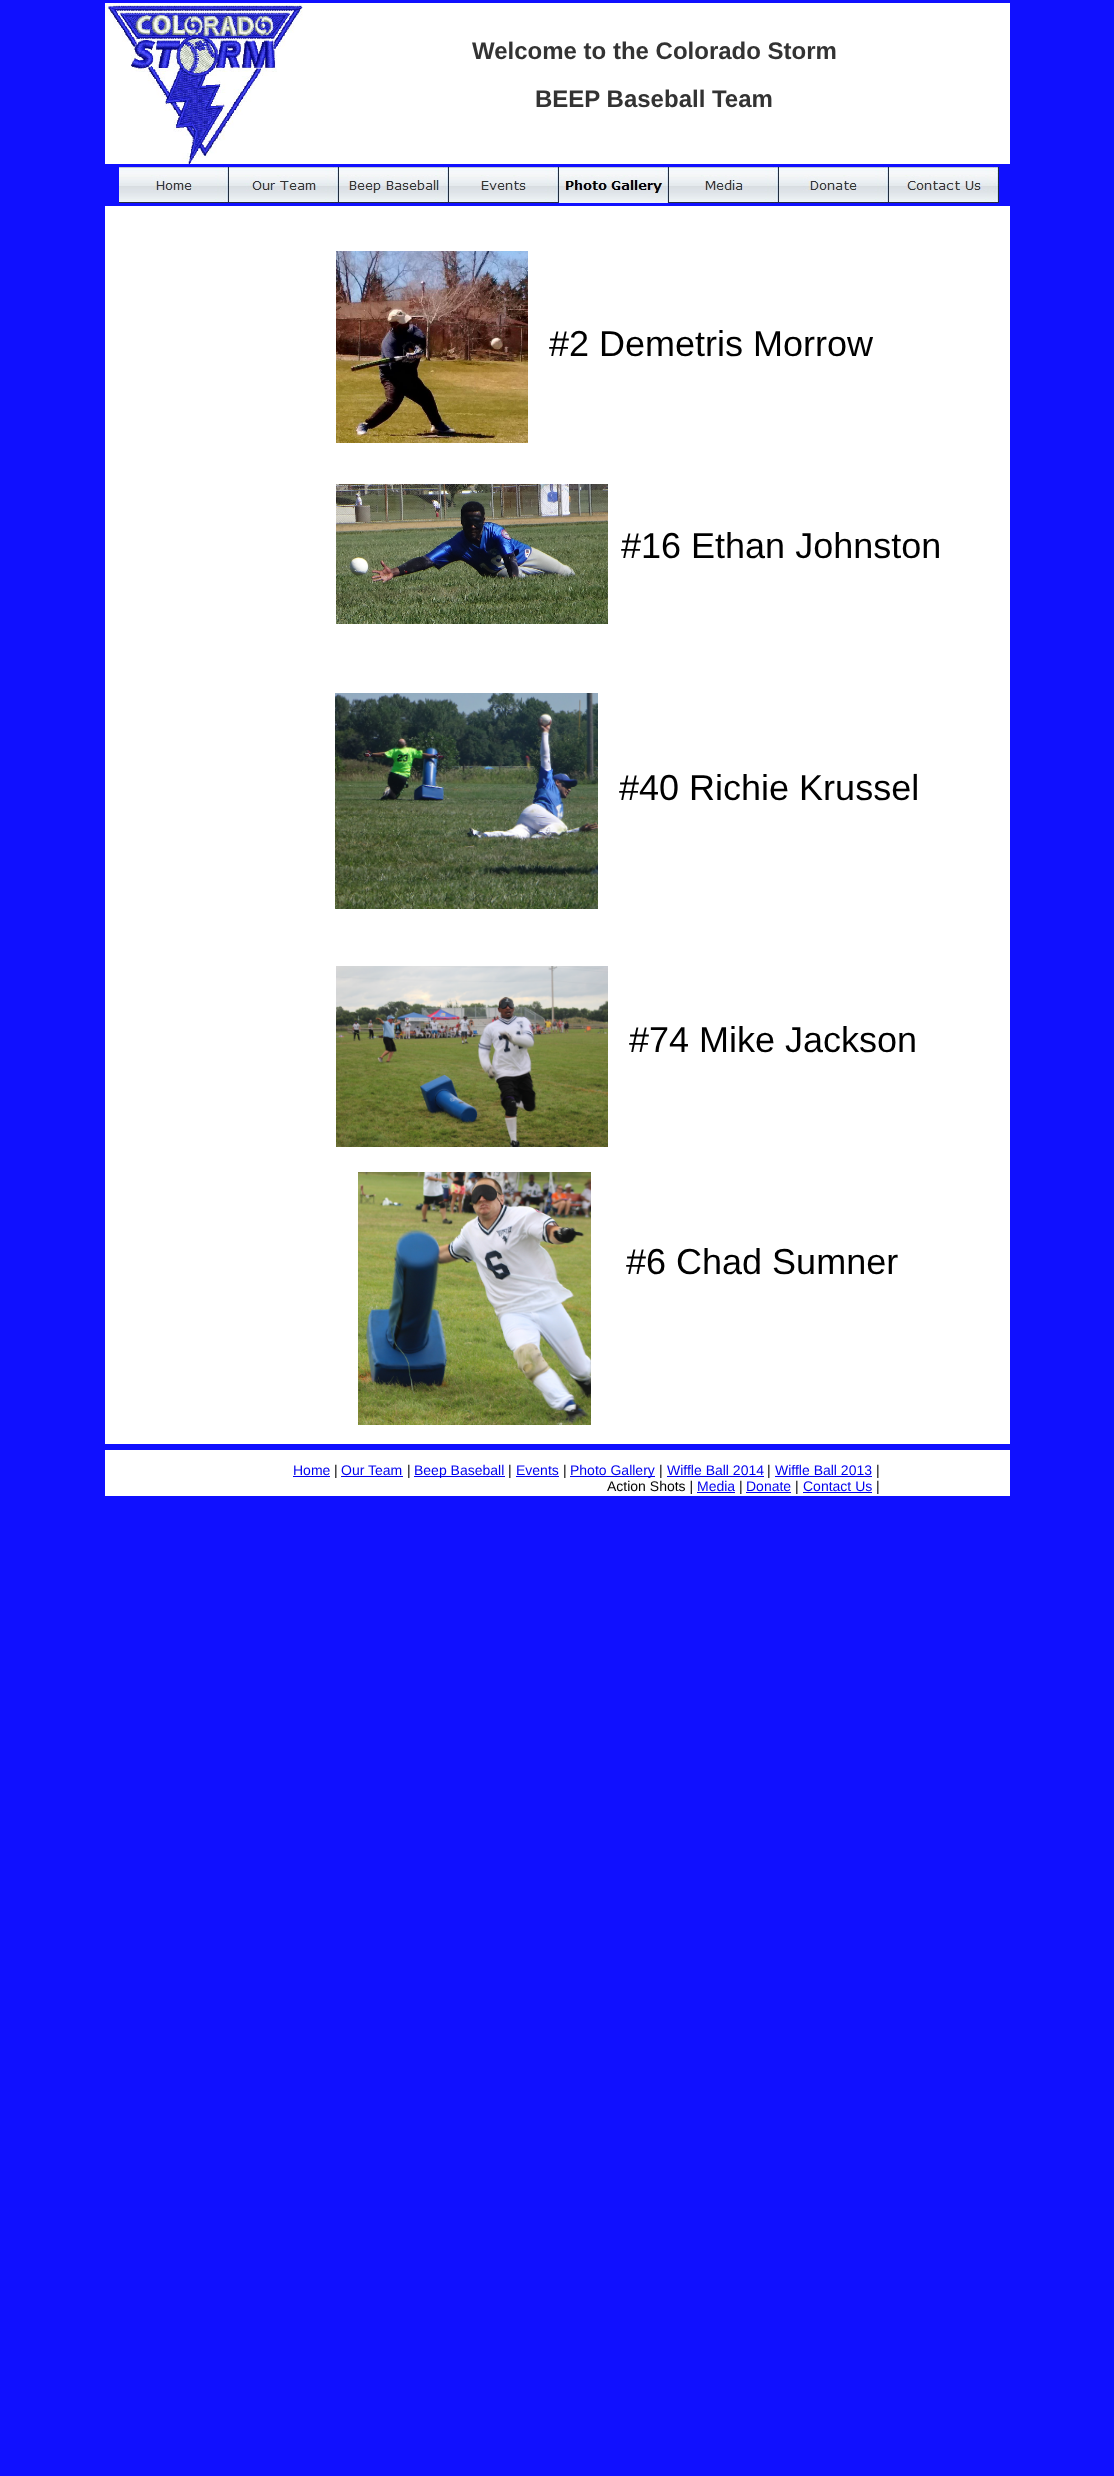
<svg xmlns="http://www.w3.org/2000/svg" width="1114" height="2476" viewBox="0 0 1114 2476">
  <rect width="100%" height="100%" fill="#1010ff"/>
  <image x="105" y="3" width="200" height="161" href="img1.png"/>
  <rect x="305" y="3" width="705" height="161" fill="#ffffff"/>
  <text x="472" y="59" font-family="Liberation Sans" font-size="24" font-weight="bold" fill="#333333">Welcome to the Colorado Storm</text>
  <text x="535" y="107" font-family="Liberation Sans" font-size="24" font-weight="bold" fill="#333333">BEEP Baseball Team</text>
  <image x="119" y="167" width="110" height="36" href="img2.png"/>
  <image x="229" y="167" width="110" height="36" href="img3.png"/>
  <image x="339" y="167" width="110" height="36" href="img4.png"/>
  <image x="449" y="167" width="110" height="36" href="img5.png"/>
  <image x="559" y="167" width="110" height="36" href="img6.png"/>
  <image x="669" y="167" width="110" height="36" href="img7.png"/>
  <image x="779" y="167" width="110" height="36" href="img8.png"/>
  <image x="889" y="167" width="110" height="36" href="img9.png"/>
  <rect x="105" y="206" width="905" height="1238" fill="#ffffff"/>
  <image x="336" y="251" width="192" height="192" href="img10.png"/>
  <text x="549" y="356" font-family="Liberation Sans" font-size="36" fill="#000000">#2 Demetris Morrow</text>
  <image x="336" y="484" width="272" height="140" href="img11.png"/>
  <text x="621" y="558" font-family="Liberation Sans" font-size="36" fill="#000000">#16 Ethan Johnston</text>
  <image x="335" y="693" width="263" height="216" href="img12.png"/>
  <text x="619" y="800" font-family="Liberation Sans" font-size="36" fill="#000000">#40 Richie Krussel</text>
  <image x="336" y="966" width="272" height="181" href="img13.png"/>
  <text x="629" y="1052" font-family="Liberation Sans" font-size="36" fill="#000000">#74 Mike Jackson</text>
  <image x="358" y="1172" width="233" height="253" href="img14.png"/>
  <text x="626" y="1274" font-family="Liberation Sans" font-size="36" fill="#000000">#6 Chad Sumner</text>
  <rect x="105" y="1450" width="905" height="46" fill="#ffffff"/>
  <text x="293" y="1475" font-family="Liberation Sans" font-size="14" fill="#0000ee">Home</text>
  <rect x="293" y="1476" width="37" height="1" fill="#0000ee"/>
  <text x="334" y="1475" font-family="Liberation Sans" font-size="14" fill="#000000">|</text>
  <text x="341" y="1475" font-family="Liberation Sans" font-size="14" fill="#0000ee">Our Team</text>
  <rect x="341" y="1476" width="62" height="1" fill="#0000ee"/>
  <text x="407" y="1475" font-family="Liberation Sans" font-size="14" fill="#000000">|</text>
  <rect x="414" y="1476" width="91" height="1" fill="#0000ee"/>
  <text x="414" y="1475" font-family="Liberation Sans" font-size="14" fill="#0000ee">Beep Baseball</text>
  <text x="508" y="1475" font-family="Liberation Sans" font-size="14" fill="#000000">|</text>
  <text x="516" y="1475" font-family="Liberation Sans" font-size="14" fill="#0000ee">Events</text>
  <rect x="516" y="1476" width="43" height="1" fill="#0000ee"/>
  <text x="563" y="1475" font-family="Liberation Sans" font-size="14" fill="#000000">|</text>
  <rect x="570" y="1476" width="85" height="1" fill="#0000ee"/>
  <text x="570" y="1475" font-family="Liberation Sans" font-size="14" fill="#0000ee">Photo Gallery</text>
  <text x="659" y="1475" font-family="Liberation Sans" font-size="14" fill="#000000">|</text>
  <text x="667" y="1475" font-family="Liberation Sans" font-size="14" fill="#0000ee">Wiffle Ball 2014</text>
  <rect x="667" y="1476" width="97" height="1" fill="#0000ee"/>
  <text x="767" y="1475" font-family="Liberation Sans" font-size="14" fill="#000000">|</text>
  <text x="775" y="1475" font-family="Liberation Sans" font-size="14" fill="#0000ee">Wiffle Ball 2013</text>
  <rect x="775" y="1476" width="97" height="1" fill="#0000ee"/>
  <text x="876" y="1475" font-family="Liberation Sans" font-size="14" fill="#000000">|</text>
  <text x="607" y="1491" font-family="Liberation Sans" font-size="14" fill="#000000">Action Shots |</text>
  <text x="697" y="1491" font-family="Liberation Sans" font-size="14" fill="#0000ee">Media</text>
  <rect x="697" y="1492" width="38" height="1" fill="#0000ee"/>
  <text x="739" y="1491" font-family="Liberation Sans" font-size="14" fill="#000000">|</text>
  <text x="746" y="1491" font-family="Liberation Sans" font-size="14" fill="#0000ee">Donate</text>
  <rect x="746" y="1492" width="45" height="1" fill="#0000ee"/>
  <text x="795" y="1491" font-family="Liberation Sans" font-size="14" fill="#000000">|</text>
  <text x="803" y="1491" font-family="Liberation Sans" font-size="14" fill="#0000ee">Contact Us</text>
  <rect x="803" y="1492" width="69" height="1" fill="#0000ee"/>
  <text x="876" y="1491" font-family="Liberation Sans" font-size="14" fill="#000000">|</text>
</svg>
